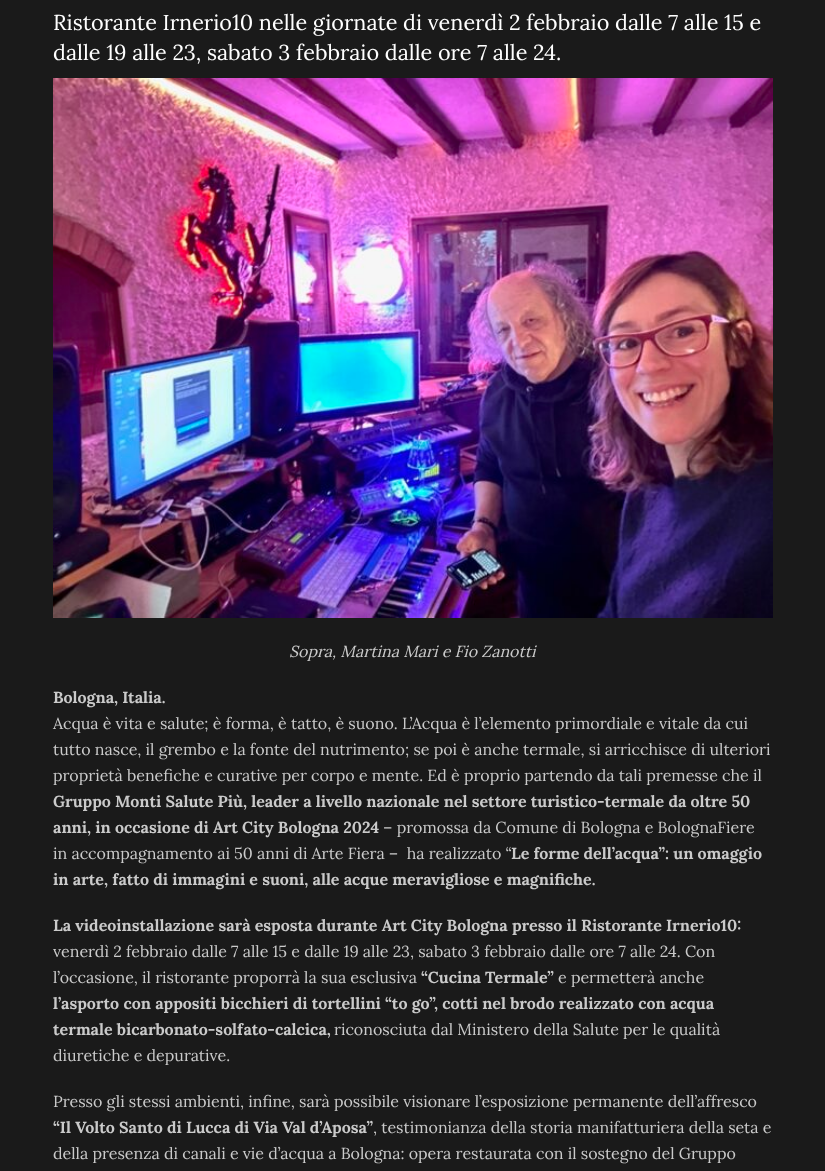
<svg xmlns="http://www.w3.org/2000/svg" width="825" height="1171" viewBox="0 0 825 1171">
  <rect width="100%" height="100%" fill="#1a1a1a"/>
  <text x="53" y="30" font-family="Lora" font-size="21.6" fill="#ffffff">Ristorante Irnerio10 nelle giornate di venerdì 2 febbraio dalle 7 alle 15 e</text>
  <text x="53" y="60" font-family="Lora" font-size="21.6" fill="#ffffff">dalle 19 alle 23, sabato 3 febbraio dalle ore 7 alle 24.</text>
  <image x="53" y="78" width="720" height="540" href="img1.png"/>
  <text x="289" y="657" font-family="Lora" font-size="16" font-style="italic" fill="#cacaca">Sopra, Martina Mari e Fio Zanotti</text>
  <text x="53" y="703" font-family="Lora" font-size="16" font-weight="bold" fill="#cacaca">Bologna, Italia.</text>
  <text x="53" y="729" font-family="Lora" font-size="16" fill="#cacaca">Acqua è vita e salute; è forma, è tatto, è suono. L’Acqua è l’elemento primordiale e vitale da cui</text>
  <text x="53" y="755" font-family="Lora" font-size="16" fill="#cacaca">tutto nasce, il grembo e la fonte del nutrimento; se poi è anche termale, si arricchisce di ulteriori</text>
  <text x="53" y="781" font-family="Lora" font-size="16" fill="#cacaca">proprietà benefiche e curative per corpo e mente. Ed è proprio partendo da tali premesse che il</text>
  <text x="53" y="807" font-family="Lora" font-size="16" font-weight="bold" fill="#cacaca">Gruppo Monti Salute Più, leader a livello nazionale nel settore turistico-termale da oltre 50</text>
  <text x="53" y="833" font-family="Lora" font-size="16" font-weight="bold" fill="#cacaca">anni, in occasione di Art City Bologna 2024</text>
  <text x="383" y="833" font-family="Lora" font-size="16" fill="#cacaca">– promossa da Comune di Bologna e BolognaFiere</text>
  <text x="53" y="859" font-family="Lora" font-size="16" fill="#cacaca" xml:space="preserve">in accompagnamento ai 50 anni di Arte Fiera –  ha realizzato “</text>
  <text x="511" y="859" font-family="Lora" font-size="16" font-weight="bold" fill="#cacaca">Le forme dell’acqua”: un omaggio</text>
  <text x="53" y="885" font-family="Lora" font-size="16" font-weight="bold" fill="#cacaca">in arte, fatto di immagini e suoni, alle acque meravigliose e magnifiche.</text>
  <text x="53" y="931" font-family="Lora" font-size="16" font-weight="bold" fill="#cacaca">La videoinstallazione sarà esposta durante Art City Bologna presso il Ristorante Irnerio10:</text>
  <text x="53" y="957" font-family="Lora" font-size="16" fill="#cacaca">venerdì 2 febbraio dalle 7 alle 15 e dalle 19 alle 23, sabato 3 febbraio dalle ore 7 alle 24. Con</text>
  <text x="53" y="983" font-family="Lora" font-size="16" fill="#cacaca">l’occasione, il ristorante proporrà la sua esclusiva</text>
  <text x="421" y="983" font-family="Lora" font-size="16" font-weight="bold" fill="#cacaca">“Cucina Termale”</text>
  <text x="558" y="983" font-family="Lora" font-size="16" fill="#cacaca">e permetterà anche</text>
  <text x="53" y="1009" font-family="Lora" font-size="16" font-weight="bold" fill="#cacaca">l’asporto con appositi bicchieri di tortellini “to go”, cotti nel brodo realizzato con acqua</text>
  <text x="53" y="1035" font-family="Lora" font-size="16" font-weight="bold" fill="#cacaca">termale bicarbonato-solfato-calcica,</text>
  <text x="334" y="1035" font-family="Lora" font-size="16" fill="#cacaca">riconosciuta dal Ministero della Salute per le qualità</text>
  <text x="53" y="1061" font-family="Lora" font-size="16" fill="#cacaca">diuretiche e depurative.</text>
  <text x="53" y="1107" font-family="Lora" font-size="16" fill="#cacaca">Presso gli stessi ambienti, infine, sarà possibile visionare l’esposizione permanente dell’affresco</text>
  <text x="53" y="1133" font-family="Lora" font-size="16" font-weight="bold" fill="#cacaca">“Il Volto Santo di Lucca di Via Val d’Aposa”</text>
  <text x="373" y="1133" font-family="Lora" font-size="16" fill="#cacaca">, testimonianza della storia manifatturiera della seta e</text>
  <text x="53" y="1159" font-family="Lora" font-size="16" fill="#cacaca">della presenza di canali e vie d’acqua a Bologna: opera restaurata con il sostegno del Gruppo</text>
</svg>
